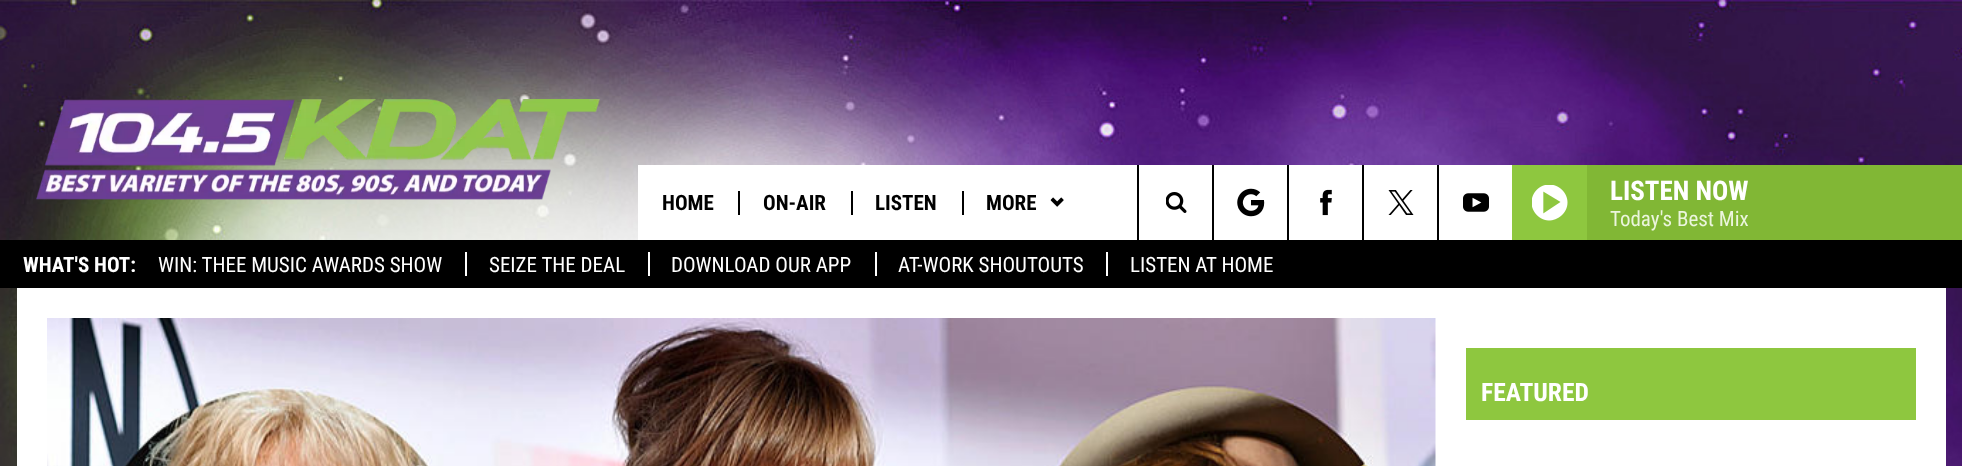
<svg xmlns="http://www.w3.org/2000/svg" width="1962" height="466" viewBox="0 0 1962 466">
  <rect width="100%" height="100%" fill="#ffffff"/>
  <image x="0" y="288" width="1962" height="178" href="img1.png"/>
  <image x="0" y="0" width="1962" height="240" href="img2.png"/>
  <image x="36" y="99" width="564" height="101" href="img3.png"/>
  <rect x="638" y="165" width="874" height="75" fill="#ffffff"/>
  <text x="662" y="210" font-family="Roboto Condensed" font-size="21" font-weight="bold" fill="#000000">HOME</text>
  <rect x="738" y="191" width="2" height="24" fill="#000000"/>
  <text x="763" y="210" font-family="Roboto Condensed" font-size="21" font-weight="bold" fill="#000000">ON-AIR</text>
  <rect x="851" y="191" width="2" height="24" fill="#000000"/>
  <text x="875" y="210" font-family="Roboto Condensed" font-size="21" font-weight="bold" fill="#000000">LISTEN</text>
  <rect x="962" y="191" width="2" height="24" fill="#000000"/>
  <text x="986" y="210" font-family="Roboto Condensed" font-size="21" font-weight="bold" fill="#000000">MORE</text>
  <image x="1050" y="197" width="14" height="10" href="img4.png"/>
  <rect x="1137" y="165" width="2" height="75" fill="#000000"/>
  <image x="1166" y="192" width="21" height="21" href="img5.png"/>
  <rect x="1212" y="165" width="2" height="75" fill="#000000"/>
  <image x="1237" y="188" width="28" height="29" href="img6.png"/>
  <rect x="1287" y="165" width="2" height="75" fill="#000000"/>
  <image x="1320" y="189" width="12" height="27" href="img7.png"/>
  <rect x="1362" y="165" width="2" height="75" fill="#000000"/>
  <image x="1388" y="190" width="26" height="25" href="img8.png"/>
  <rect x="1437" y="165" width="2" height="75" fill="#000000"/>
  <image x="1463" y="193" width="26" height="19" href="img9.png"/>
  <rect x="1512" y="165" width="75" height="75" fill="#8ec73f"/>
  <image x="1532" y="185" width="36" height="36" href="img10.png"/>
  <rect x="1587" y="165" width="375" height="75" fill="#81b735"/>
  <text x="1610" y="200" font-family="Roboto Condensed" font-size="27" font-weight="bold" fill="#ffffff">LISTEN NOW</text>
  <text x="1610" y="226" font-family="Roboto Condensed" font-size="21" fill="#ebf5dd">Today's Best Mix</text>
  <rect x="0" y="240" width="1962" height="48" fill="#000000"/>
  <text x="23" y="272" font-family="Roboto Condensed" font-size="21" font-weight="bold" fill="#ffffff">WHAT'S HOT:</text>
  <text x="158" y="272" font-family="Roboto Condensed" font-size="21" fill="#ffffff">WIN: THEE MUSIC AWARDS SHOW</text>
  <text x="489" y="272" font-family="Roboto Condensed" font-size="21" fill="#ffffff">SEIZE THE DEAL</text>
  <rect x="465" y="252" width="2" height="24" fill="#ffffff"/>
  <text x="671" y="272" font-family="Roboto Condensed" font-size="21" fill="#ffffff">DOWNLOAD OUR APP</text>
  <rect x="648" y="252" width="2" height="24" fill="#ffffff"/>
  <text x="898" y="272" font-family="Roboto Condensed" font-size="21" fill="#ffffff">AT-WORK SHOUTOUTS</text>
  <rect x="875" y="252" width="2" height="24" fill="#ffffff"/>
  <text x="1130" y="272" font-family="Roboto Condensed" font-size="21" fill="#ffffff">LISTEN AT HOME</text>
  <rect x="1106" y="252" width="2" height="24" fill="#ffffff"/>
  <rect x="17" y="288" width="1929" height="178" fill="#ffffff"/>
  <image x="47" y="318" width="1389" height="148" href="img11.png"/>
  <rect x="1466" y="348" width="450" height="72" fill="#8ec73f"/>
  <text x="1481" y="401" font-family="Roboto Condensed" font-size="25.5" font-weight="bold" fill="#ffffff">FEATURED</text>
</svg>
